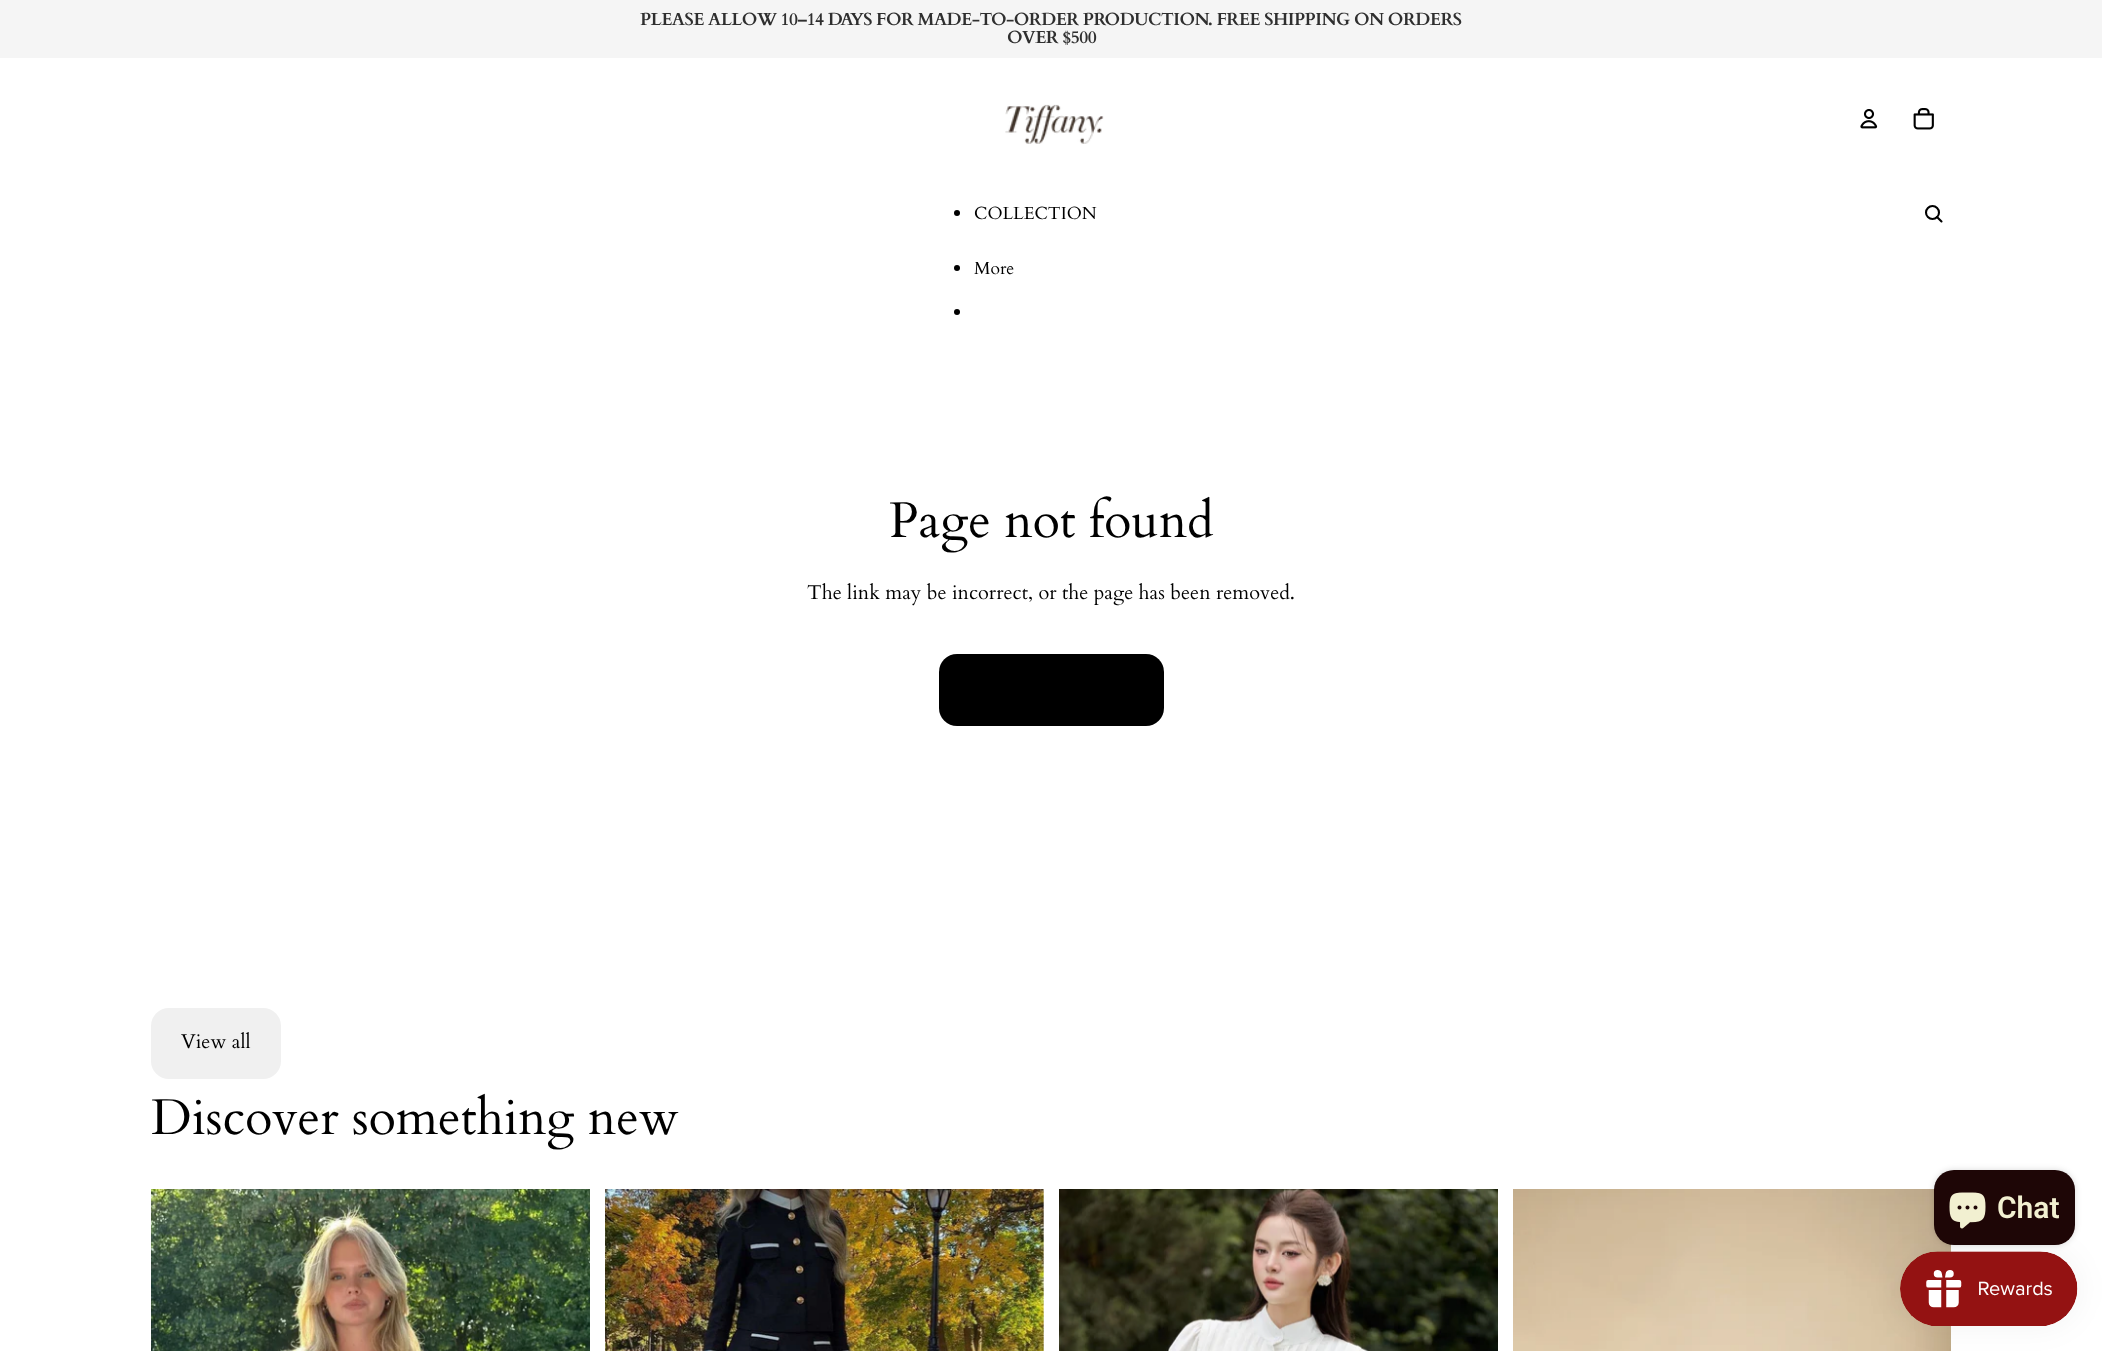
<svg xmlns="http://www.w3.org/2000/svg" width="2102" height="1351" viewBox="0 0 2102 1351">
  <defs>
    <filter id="blur1" x="-50%" y="-200%" width="200%" height="500%"><feGaussianBlur stdDeviation="3"/></filter>
    <filter id="blur2" x="-50%" y="-200%" width="200%" height="500%"><feGaussianBlur stdDeviation="15.5"/></filter>
  </defs>
  <rect width="100%" height="100%" fill="#ffffff"/>
  <rect x="0" y="0" width="2102" height="58" fill="#f5f5f5"/>
  <text x="640" y="25" font-family="Cardo" font-size="17.5" font-weight="bold" letter-spacing="-0.53" fill="#2f2f2f">PLEASE ALLOW 10–14 DAYS FOR MADE-TO-ORDER PRODUCTION. FREE SHIPPING ON ORDERS</text>
  <text x="1007" y="43" font-family="Cardo" font-size="17.5" font-weight="bold" letter-spacing="-0.53" fill="#2f2f2f">OVER $500</text>
  <image x="1005" y="104" width="99" height="40" href="img1.png"/>
  <image x="1860" y="109" width="18" height="20" href="img2.png"/>
  <image x="1913" y="108" width="21" height="22" href="img3.png"/>
  <circle cx="957" cy="213" r="3" fill="#000000"/>
  <text x="974" y="219" font-family="Cardo" font-size="17.5" fill="#000000">COLLECTION</text>
  <circle cx="957" cy="268" r="3" fill="#000000"/>
  <text x="974" y="274" font-family="Cardo" font-size="17.5" fill="#000000">More</text>
  <circle cx="957" cy="312" r="3" fill="#000000"/>
  <circle cx="1932.5" cy="212.5" r="6.5" fill="none" stroke="#000000" stroke-width="2.1"/>
  <path d="M1937 217L1941.5 221.5" fill="none" stroke="#000000" stroke-width="2.1" stroke-linecap="round" stroke-linejoin="round"/>
  <text x="889" y="537" font-family="Cardo" font-size="50" fill="#000000">Page not found</text>
  <text x="807" y="599" font-family="Cardo" font-size="20" fill="#000000">The link may be incorrect, or the page has been removed.</text>
  <rect x="939" y="654" width="225" height="72" rx="18" fill="#000000"/>
  <rect x="151" y="1008" width="130" height="71" rx="18" fill="#f0f0f0"/>
  <text x="181" y="1048" font-family="Cardo" font-size="20" fill="#000000">View all</text>
  <text x="151" y="1134" font-family="Cardo" font-size="50" fill="#000000">Discover something new</text>
  <image x="151" y="1189" width="439" height="162" href="img4.png"/>
  <image x="605" y="1189" width="439" height="162" href="img5.png"/>
  <image x="1059" y="1189" width="439" height="162" href="img6.png"/>
  <image x="1513" y="1189" width="438" height="162" href="img7.png"/>
  <rect x="1934" y="1170" width="141" height="75" rx="20" fill="#000000" fill-opacity="0.15" filter="url(#blur1)"/>
  <rect x="1934" y="1170" width="141" height="75" rx="20" fill="#1e0606"/>
  <image x="1949" y="1192" width="37" height="37" href="img8.png"/>
  <text x="1997" y="1218" font-family="Roboto" font-size="30" font-weight="600" fill="#f2f0d1">Chat</text>
  <rect x="1900" y="1251" width="178" height="75" rx="37.5" fill="#000000" fill-opacity="0.05" filter="url(#blur2)"/>
  <image x="1900" y="1251" width="178" height="75" href="img9.png"/>
</svg>
